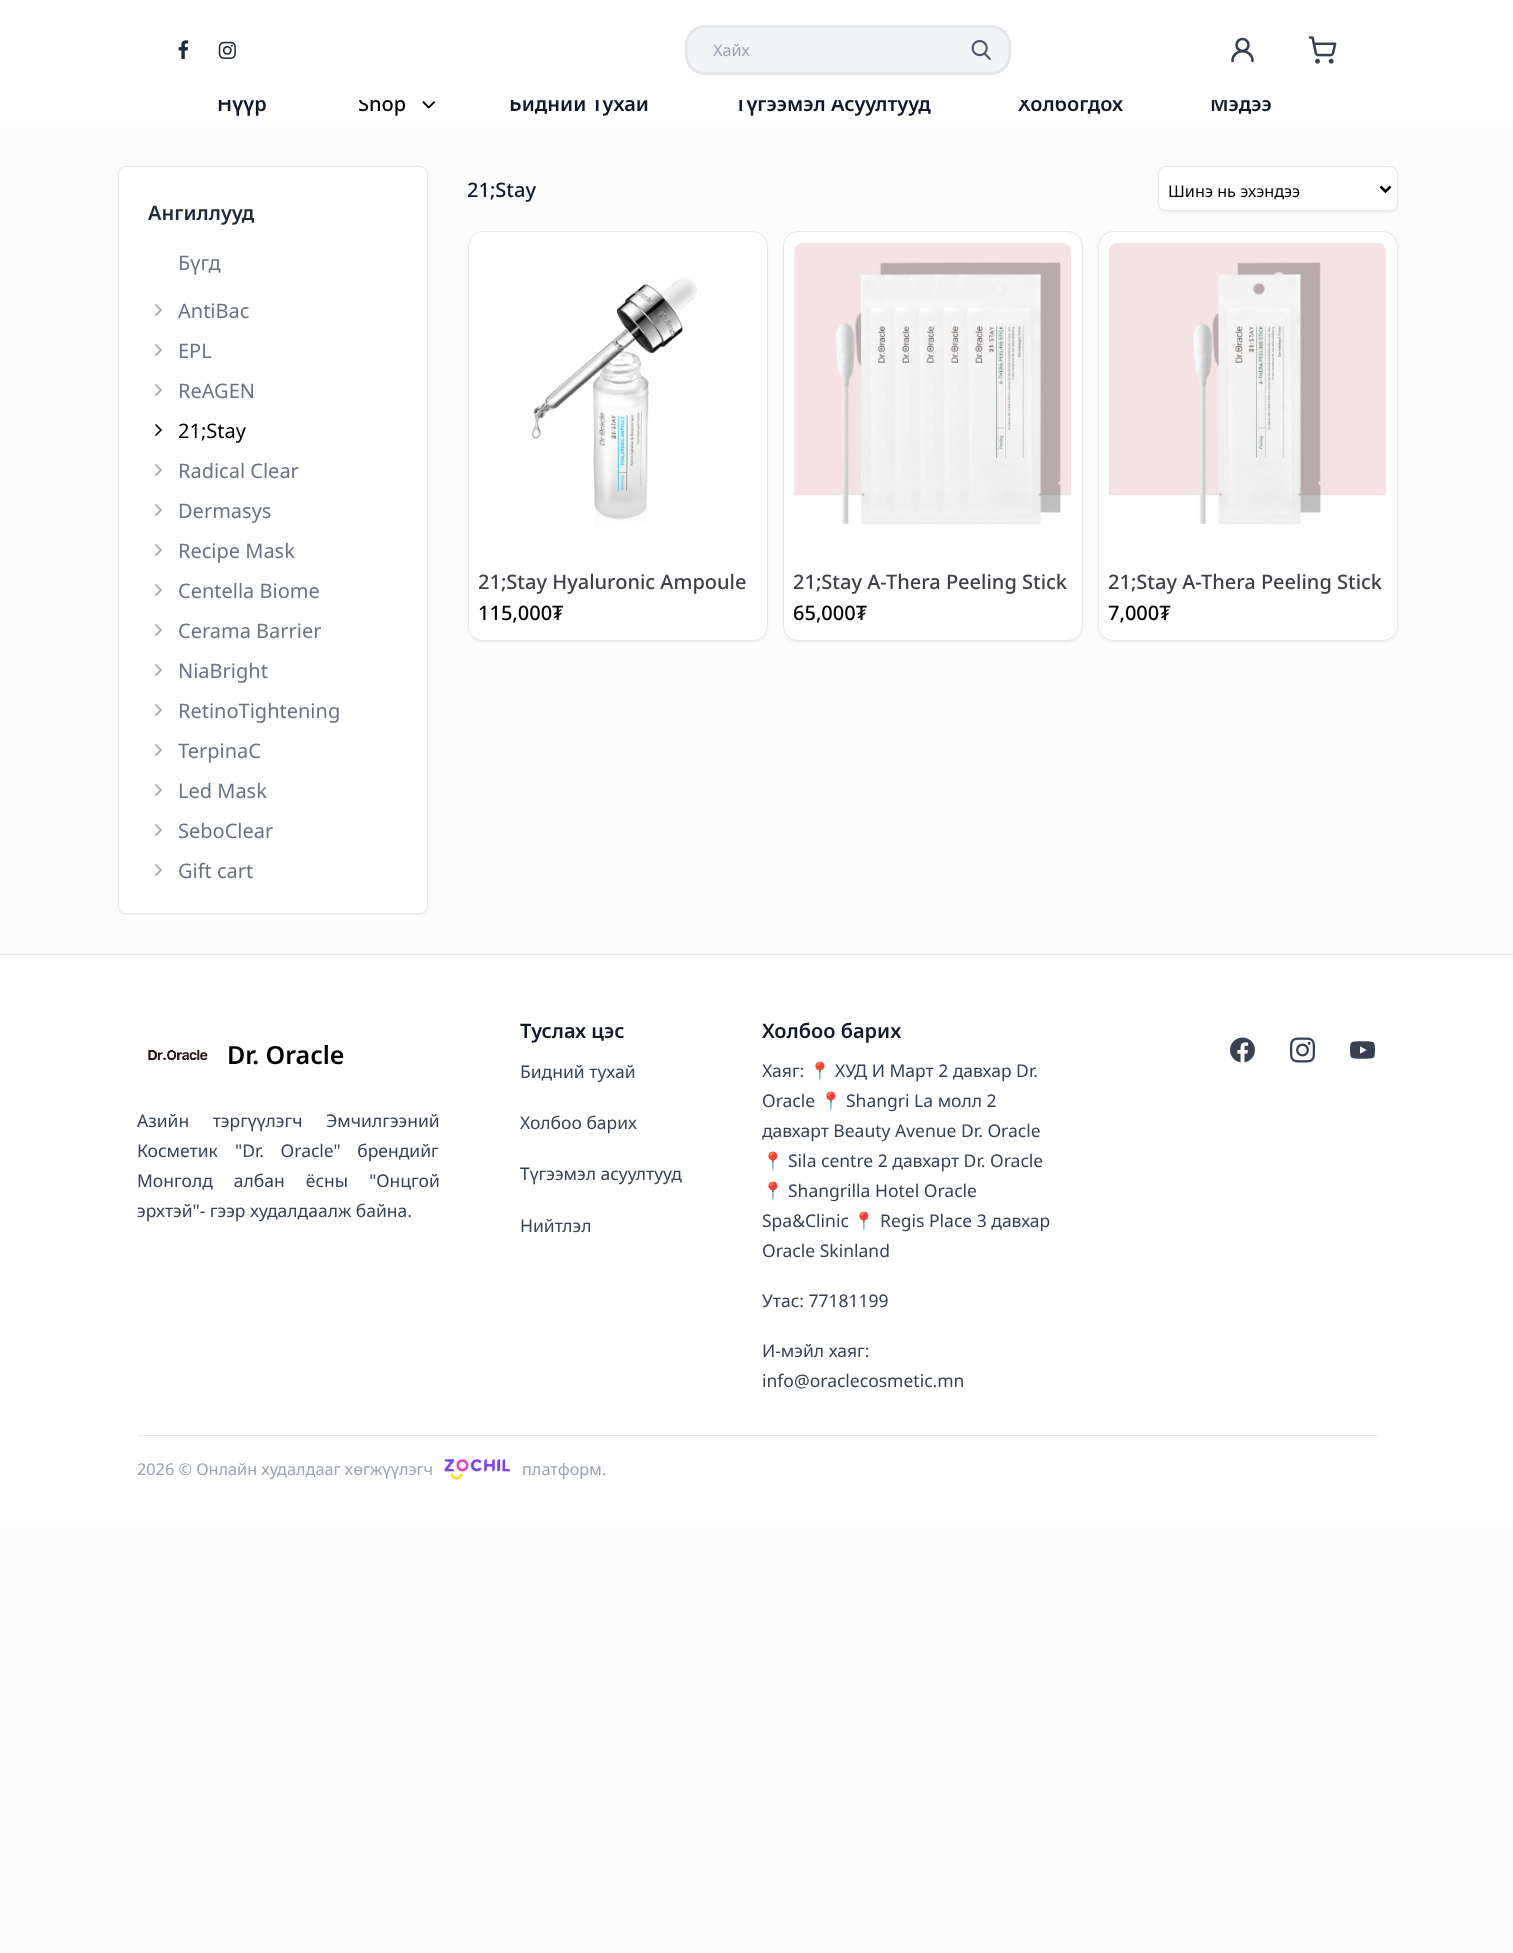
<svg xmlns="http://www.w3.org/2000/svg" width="1513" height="1953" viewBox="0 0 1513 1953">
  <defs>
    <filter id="blur1" x="-50%" y="-200%" width="200%" height="500%"><feGaussianBlur stdDeviation="1"/></filter>
  </defs>
  <rect width="100%" height="100%" fill="#fcfcfc"/>
  <rect x="0" y="100" width="1513" height="26" fill="#ffffff"/>
  <text x="217" y="111" font-family="Noto Sans" font-size="20" font-weight="600" fill="#111827">Нүүр</text>
  <text x="358" y="111" font-family="Noto Sans" font-size="20" font-weight="500" fill="#000000">Shop</text>
  <text x="509" y="111" font-family="Noto Sans" font-size="20" font-weight="600" fill="#111827">Бидний Тухай</text>
  <text x="735" y="111" font-family="Noto Sans" font-size="20" font-weight="600" fill="#111827">Түгээмэл Асуултууд</text>
  <text x="1018" y="111" font-family="Noto Sans" font-size="20" font-weight="600" fill="#111827">Холбогдох</text>
  <text x="1210" y="111" font-family="Noto Sans" font-size="20" font-weight="600" fill="#111827">Мэдээ</text>
  <rect x="0" y="0" width="1513" height="100" fill="#ffffff"/>
  <image x="178" y="40" width="11" height="19" href="img1.png"/>
  <image x="218" y="41" width="18" height="18" href="img2.png"/>
  <rect x="686.5" y="26.5" width="323" height="47" rx="18.5" fill="#f3f4f6" stroke="#e5e7eb" stroke-width="3"/>
  <text x="713" y="56" font-family="Noto Sans" font-size="16.25" fill="#9ca3af">Хайх</text>
  <image x="971" y="40" width="20" height="20" href="img3.png"/>
  <circle cx="1242.5" cy="45" r="6" fill="none" stroke="#374151" stroke-width="2.5"/>
  <path d="M1252.5 61C1252.5 48 1232.5 48 1232.5 61" fill="none" stroke="#374151" stroke-width="2.5" stroke-linecap="round" stroke-linejoin="round"/>
  <image x="1308" y="36" width="29" height="28" href="img4.png"/>
  <image x="422" y="101" width="13" height="8" href="img5.png"/>
  <rect x="118" y="168" width="310" height="747" rx="8" fill="#000000" fill-opacity="0.05" filter="url(#blur1)"/>
  <rect x="118.5" y="166.5" width="309" height="747" rx="7.5" fill="#ffffff" stroke="#e5e7eb"/>
  <text x="148" y="220" font-family="Noto Sans" font-size="20" font-weight="600" fill="#1f2937">Ангиллууд</text>
  <text x="178" y="270" font-family="Noto Sans" font-size="20" fill="#6b7280">Бүгд</text>
  <path d="M156 315L161 310L156 305M156 355L161 350L156 345" fill="none" stroke="#9ca3af" stroke-width="1.7" stroke-linecap="round" stroke-linejoin="round"/>
  <text x="178" y="318" font-family="Noto Sans" font-size="20" fill="#6b7280">AntiBac</text>
  <text x="178" y="358" font-family="Noto Sans" font-size="20" fill="#6b7280">EPL</text>
  <path d="M156 395L161 390L156 385" fill="none" stroke="#9ca3af" stroke-width="1.7" stroke-linecap="round" stroke-linejoin="round"/>
  <text x="178" y="398" font-family="Noto Sans" font-size="20" fill="#6b7280">ReAGEN</text>
  <path d="M156 435L161 430L156 425" fill="none" stroke="#000000" stroke-width="1.7" stroke-linecap="round" stroke-linejoin="round"/>
  <text x="178" y="438" font-family="Noto Sans" font-size="20" fill="#000000">21;Stay</text>
  <path d="M156 475L161 470L156 465M156 515L161 510L156 505" fill="none" stroke="#9ca3af" stroke-width="1.7" stroke-linecap="round" stroke-linejoin="round"/>
  <text x="178" y="478" font-family="Noto Sans" font-size="20" fill="#6b7280">Radical Clear</text>
  <text x="178" y="518" font-family="Noto Sans" font-size="20" fill="#6b7280">Dermasys</text>
  <path d="M156 555L161 550L156 545M156 595L161 590L156 585" fill="none" stroke="#9ca3af" stroke-width="1.7" stroke-linecap="round" stroke-linejoin="round"/>
  <text x="178" y="558" font-family="Noto Sans" font-size="20" fill="#6b7280">Recipe Mask</text>
  <text x="178" y="598" font-family="Noto Sans" font-size="20" fill="#6b7280">Centella Biome</text>
  <path d="M156 635L161 630L156 625M156 675L161 670L156 665" fill="none" stroke="#9ca3af" stroke-width="1.7" stroke-linecap="round" stroke-linejoin="round"/>
  <text x="178" y="638" font-family="Noto Sans" font-size="20" fill="#6b7280">Cerama Barrier</text>
  <text x="178" y="678" font-family="Noto Sans" font-size="20" fill="#6b7280">NiaBright</text>
  <path d="M156 715L161 710L156 705M156 755L161 750L156 745" fill="none" stroke="#9ca3af" stroke-width="1.7" stroke-linecap="round" stroke-linejoin="round"/>
  <text x="178" y="718" font-family="Noto Sans" font-size="20" fill="#6b7280">RetinoTightening</text>
  <text x="178" y="758" font-family="Noto Sans" font-size="20" fill="#6b7280">TerpinaC</text>
  <path d="M156 795L161 790L156 785M156 835L161 830L156 825" fill="none" stroke="#9ca3af" stroke-width="1.7" stroke-linecap="round" stroke-linejoin="round"/>
  <text x="178" y="798" font-family="Noto Sans" font-size="20" fill="#6b7280">Led Mask</text>
  <text x="178" y="838" font-family="Noto Sans" font-size="20" fill="#6b7280">SeboClear</text>
  <path d="M156 875L161 870L156 865" fill="none" stroke="#9ca3af" stroke-width="1.7" stroke-linecap="round" stroke-linejoin="round"/>
  <text x="178" y="878" font-family="Noto Sans" font-size="20" fill="#6b7280">Gift cart</text>
  <text x="467" y="197" font-family="Noto Sans" font-size="20" font-weight="500" fill="#111827">21;Stay</text>
  <rect x="1158" y="168" width="240" height="45" rx="8" fill="#000000" fill-opacity="0.05" filter="url(#blur1)"/>
  <rect x="1158.5" y="166.5" width="239" height="44" rx="7.5" fill="#ffffff" stroke="#e5e7eb"/>
  <path d="M1380.5 186.5L1385.5 191.5L1390.5 186.5" fill="none" stroke="#000000" stroke-width="2.5"/>
  <text x="1168" y="197" font-family="Noto Sans" font-size="16.25" fill="#000000">Шинэ нь эхэндээ</text>
  <rect x="468" y="233" width="300" height="410" rx="15" fill="#000000" fill-opacity="0.05" filter="url(#blur1)"/>
  <rect x="468.5" y="231.5" width="299" height="409" rx="14.5" fill="#ffffff" stroke="#e5e7eb"/>
  <image x="531" y="277" width="166" height="250" href="img6.png"/>
  <text x="478" y="589" font-family="Noto Sans" font-size="20" font-weight="500" fill="#3f3f46">21;Stay Hyaluronic Ampoule</text>
  <text x="478" y="620" font-family="Noto Sans" font-size="20" font-weight="500" fill="#000000">115,000₮</text>
  <rect x="783" y="233" width="300" height="410" rx="15" fill="#000000" fill-opacity="0.05" filter="url(#blur1)"/>
  <rect x="783.5" y="231.5" width="299" height="409" rx="14.5" fill="#ffffff" stroke="#e5e7eb"/>
  <image x="794" y="242" width="277" height="283" href="img7.png"/>
  <text x="793" y="589" font-family="Noto Sans" font-size="20" font-weight="500" fill="#3f3f46">21;Stay A-Thera Peeling Stick</text>
  <text x="793" y="620" font-family="Noto Sans" font-size="20" font-weight="500" fill="#000000">65,000₮</text>
  <rect x="1098" y="233" width="300" height="410" rx="15" fill="#000000" fill-opacity="0.05" filter="url(#blur1)"/>
  <rect x="1098.5" y="231.5" width="299" height="409" rx="14.5" fill="#ffffff" stroke="#e5e7eb"/>
  <image x="1109" y="242" width="277" height="283" href="img8.png"/>
  <text x="1108" y="589" font-family="Noto Sans" font-size="20" font-weight="500" fill="#3f3f46">21;Stay A-Thera Peeling Stick</text>
  <text x="1108" y="620" font-family="Noto Sans" font-size="20" font-weight="500" fill="#000000">7,000₮</text>
  <rect x="0" y="955" width="1513" height="566" fill="#ffffff"/>
  <rect x="0" y="954" width="1513" height="1" fill="#e5e7eb"/>
  <image x="148" y="1050" width="60" height="11" href="img9.png"/>
  <text x="227" y="1064" font-family="Noto Sans" font-size="25" font-weight="600" fill="#000000">Dr. Oracle</text>
  <text x="137" y="1127" word-spacing="19" font-family="Noto Sans" font-size="17.5" fill="#374151">Азийн тэргүүлэгч Эмчилгээний</text>
  <text x="137" y="1157" font-family="Noto Sans" font-size="17.5" fill="#374151">Косметик</text>
  <text x="235" y="1157" word-spacing="12" font-family="Noto Sans" font-size="17.5" fill="#374151">"Dr. Oracle" брендийг</text>
  <text x="137" y="1187" word-spacing="16.5" font-family="Noto Sans" font-size="17.5" fill="#374151">Монголд албан ёсны "Онцгой</text>
  <text x="137" y="1217" font-family="Noto Sans" font-size="17.5" fill="#374151">эрхтэй"- гээр худалдаалж байна.</text>
  <text x="520" y="1038" font-family="Noto Sans" font-size="20" font-weight="600" fill="#111827">Туслах цэс</text>
  <text x="520" y="1078" font-family="Noto Sans" font-size="17.5" fill="#374151">Бидний тухай</text>
  <text x="520" y="1129" font-family="Noto Sans" font-size="17.5" fill="#374151">Холбоо барих</text>
  <text x="520" y="1180" font-family="Noto Sans" font-size="17.5" fill="#374151">Түгээмэл асуултууд</text>
  <text x="520" y="1232" font-family="Noto Sans" font-size="17.5" fill="#374151">Нийтлэл</text>
  <text x="762" y="1038" font-family="Noto Sans" font-size="20" font-weight="600" fill="#111827">Холбоо барих</text>
  <text x="762" y="1077" font-family="Noto Sans" font-size="17.5" fill="#374151">Хаяг:</text>
  <text x="809" y="1077" font-family="Noto Color Emoji" font-size="17.5" fill="#374151">📍</text>
  <text x="835" y="1077" font-family="Noto Sans" font-size="17.5" fill="#374151">ХУД И Март 2 давхар Dr.</text>
  <text x="762" y="1107" font-family="Noto Sans" font-size="17.5" fill="#374151">Oracle</text>
  <text x="820" y="1107" font-family="Noto Color Emoji" font-size="17.5" fill="#374151">📍</text>
  <text x="846" y="1107" font-family="Noto Sans" font-size="17.5" fill="#374151">Shangri La молл 2</text>
  <text x="762" y="1137" font-family="Noto Sans" font-size="17.5" fill="#374151">давхарт Beauty Avenue Dr. Oracle</text>
  <text x="762" y="1167" font-family="Noto Color Emoji" font-size="17.5" fill="#374151">📍</text>
  <text x="788" y="1167" font-family="Noto Sans" font-size="17.5" fill="#374151">Sila centre 2 давхарт Dr. Oracle</text>
  <text x="762" y="1197" font-family="Noto Color Emoji" font-size="17.5" fill="#374151">📍</text>
  <text x="788" y="1197" font-family="Noto Sans" font-size="17.5" fill="#374151">Shangrilla Hotel Oracle</text>
  <text x="762" y="1227" font-family="Noto Sans" font-size="17.5" fill="#374151">Spa&amp;Clinic</text>
  <text x="853" y="1227" font-family="Noto Color Emoji" font-size="17.5" fill="#374151">📍</text>
  <text x="880" y="1227" font-family="Noto Sans" font-size="17.5" fill="#374151">Regis Place 3 давхар</text>
  <text x="762" y="1257" font-family="Noto Sans" font-size="17.5" fill="#374151">Oracle Skinland</text>
  <text x="762" y="1307" font-family="Noto Sans" font-size="17.5" fill="#374151">Утас: 77181199</text>
  <text x="762" y="1357" font-family="Noto Sans" font-size="17.5" fill="#374151">И-мэйл хаяг:</text>
  <text x="762" y="1387" font-family="Noto Sans" font-size="17.5" fill="#374151">info@oraclecosmetic.mn</text>
  <image x="1230" y="1037" width="25" height="26" href="img10.png"/>
  <image x="1290" y="1037" width="25" height="26" href="img11.png"/>
  <image x="1350" y="1041" width="25" height="18" href="img12.png"/>
  <rect x="138" y="1435" width="1240" height="1" fill="#e7e8e9"/>
  <text x="137" y="1475" font-family="Noto Sans" font-size="16.25" fill="#9ca3af">2026 © Онлайн худалдааг хөгжүүлэгч</text>
  <image x="444" y="1459" width="66" height="21" href="img13.png"/>
  <text x="522" y="1475" font-family="Noto Sans" font-size="16.25" fill="#9ca3af">платформ.</text>
</svg>
